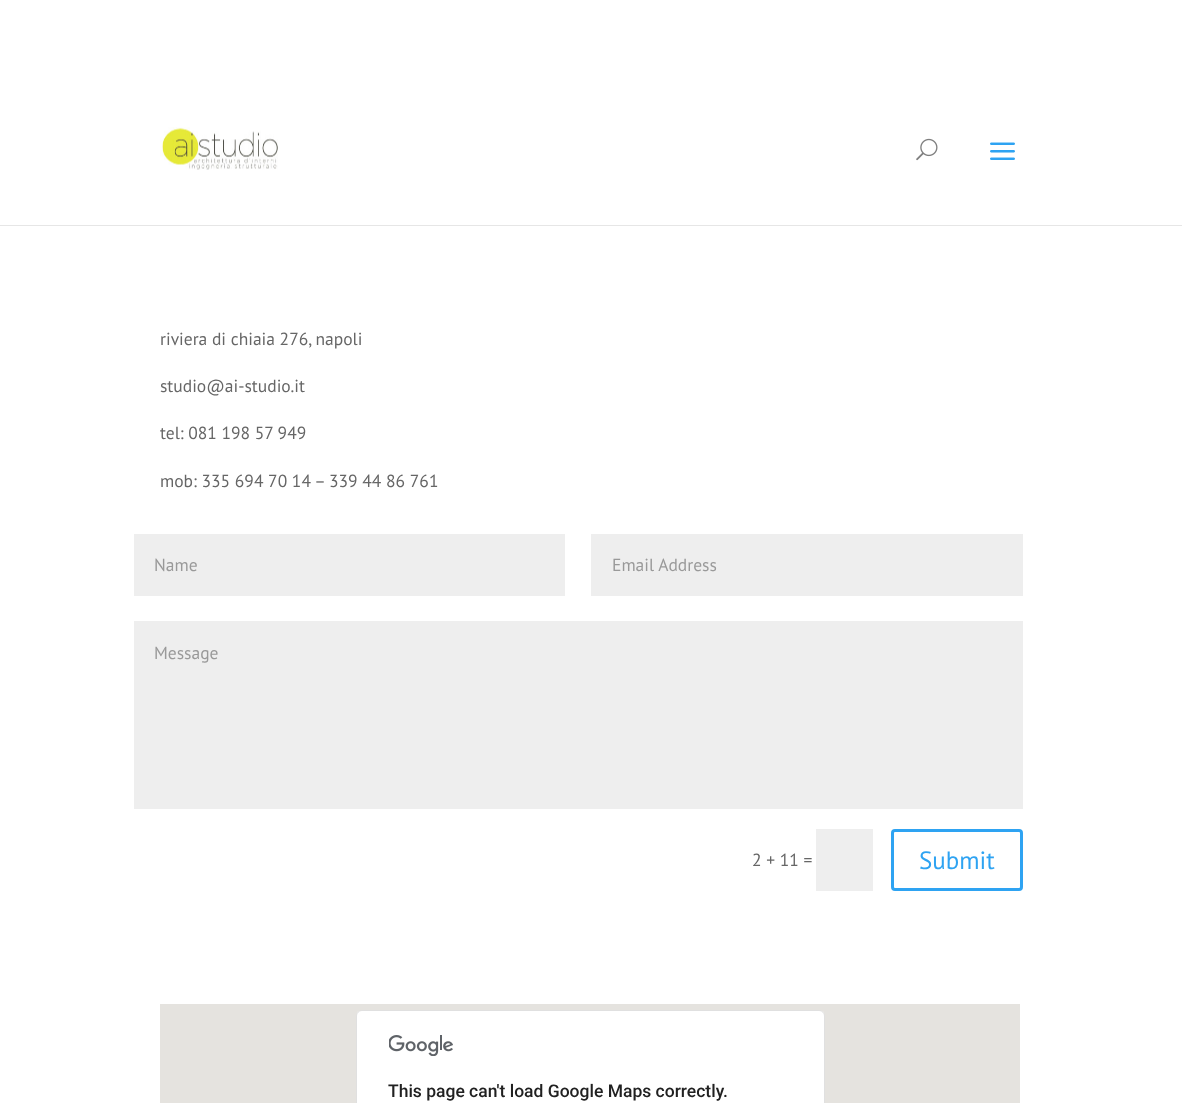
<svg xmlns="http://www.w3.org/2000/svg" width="1182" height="1103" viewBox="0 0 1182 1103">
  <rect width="100%" height="100%" fill="#ffffff"/>
  <path d="M0 225V226H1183V101H1182V225Z" fill="#e6e6e6"/>
  <image x="160" y="127" width="118" height="43" href="img1.png"/>
  <image x="916" y="138" width="22" height="23" href="img2.png"/>
  <image x="990" y="142" width="25" height="18" href="img3.png"/>
  <text x="160" y="345" font-family="PT Sans" font-size="17.5" fill="#666666">riviera di chiaia 276, napoli</text>
  <text x="160" y="392" font-family="PT Sans" font-size="17.5" fill="#666666">studio@ai-studio.it</text>
  <text x="160" y="439" font-family="PT Sans" font-size="17.5" fill="#666666">tel: 081 198 57 949</text>
  <text x="160" y="487" font-family="PT Sans" font-size="17.5" fill="#666666">mob: 335 694 70 14 – 339 44 86 761</text>
  <rect x="134" y="534" width="431" height="62" fill="#eeeeee"/>
  <text x="154" y="571" font-family="PT Sans" font-size="17.5" fill="#999999">Name</text>
  <rect x="591" y="534" width="432" height="62" fill="#eeeeee"/>
  <text x="612" y="571" font-family="PT Sans" font-size="17.5" fill="#999999">Email Address</text>
  <rect x="134" y="621" width="889" height="188" fill="#eeeeee"/>
  <text x="154" y="659" font-family="PT Sans" font-size="17.5" fill="#999999">Message</text>
  <text x="752" y="866" font-family="PT Sans" font-size="17.5" fill="#666666">2 + 11 =</text>
  <rect x="816" y="829" width="57" height="62" fill="#eeeeee"/>
  <rect x="892.5" y="830.5" width="129" height="59" rx="2.5" fill="none" stroke="#2ea3f2" stroke-width="3"/>
  <text x="919" y="869" font-family="PT Sans" font-size="25" fill="#2ea3f2">Submit</text>
  <rect x="160" y="1004" width="860" height="99" fill="#e5e3df"/>
  <rect x="356" y="1010" width="469" height="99" rx="6" fill="#ffffff"/>
  <rect x="356.5" y="1010.5" width="468" height="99" rx="5.5" fill="none" stroke="#000000" stroke-opacity="0.12"/>
  <image x="389" y="1035" width="64" height="21" href="img4.png"/>
  <text x="388" y="1097" font-family="Roboto" font-size="17.5" font-weight="500" fill="#212121">This page can't load Google Maps correctly.</text>
</svg>
